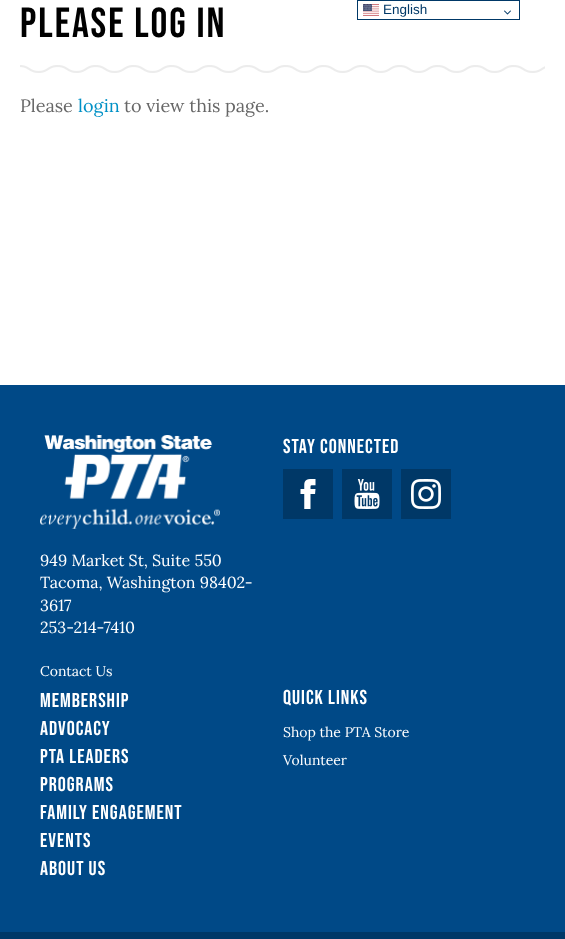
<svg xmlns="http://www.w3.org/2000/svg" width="565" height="939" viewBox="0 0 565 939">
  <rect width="100%" height="100%" fill="#ffffff"/>
  <text x="20" y="37" font-family="Bebas Neue" font-size="42" letter-spacing="2" fill="#000000">Please Log In</text>
  <image x="20" y="65" width="525" height="8" href="img1.png"/>
  <text x="20" y="112" font-family="Lora" font-size="18" fill="#676767">Please</text>
  <text x="78" y="112" font-family="Lora" font-size="18" fill="#0091c6">login</text>
  <text x="124" y="112" font-family="Lora" font-size="18" fill="#676767">to view this page.</text>
  <rect x="357.5" y="0.5" width="162" height="19" fill="none" stroke="#003867"/>
  <image x="363" y="4" width="16" height="12" href="img2.png"/>
  <text x="383" y="14" font-family="Liberation Sans" font-size="13.5" fill="#003867">English</text>
  <image x="504" y="10" width="7" height="5" href="img3.png"/>
  <rect x="0" y="385" width="565" height="547" fill="#004987"/>
  <text x="283" y="453" font-family="Bebas Neue" font-size="20" letter-spacing="1" fill="#ffffff">Stay Connected</text>
  <rect x="283" y="469" width="50" height="50" fill="#003867"/>
  <image x="300" y="479" width="16" height="30" href="img4.png"/>
  <rect x="342" y="469" width="50" height="50" fill="#003867"/>
  <image x="354" y="479" width="26" height="30" href="img5.png"/>
  <rect x="401" y="469" width="50" height="50" fill="#003867"/>
  <image x="411" y="479" width="30" height="30" href="img6.png"/>
  <image x="40" y="435" width="180" height="94" href="img7.png"/>
  <text x="40" y="566" font-family="Lora" font-size="16" fill="#ffffff">949 Market St, Suite 550</text>
  <text x="40" y="588" font-family="Lora" font-size="16" fill="#ffffff">Tacoma, Washington 98402-</text>
  <text x="40" y="611" font-family="Lora" font-size="16" fill="#ffffff">3617</text>
  <text x="40" y="633" font-family="Lora" font-size="16" fill="#ffffff">253-214-7410</text>
  <text x="40" y="676" font-family="Lora" font-size="14" fill="#ffffff">Contact Us</text>
  <text x="40" y="707" font-family="Bebas Neue" font-size="20" letter-spacing="1" fill="#ffffff">Membership</text>
  <text x="40" y="735" font-family="Bebas Neue" font-size="20" letter-spacing="1" fill="#ffffff">Advocacy</text>
  <text x="40" y="763" font-family="Bebas Neue" font-size="20" letter-spacing="1" fill="#ffffff">PTA Leaders</text>
  <text x="40" y="791" font-family="Bebas Neue" font-size="20" letter-spacing="1" fill="#ffffff">Programs</text>
  <text x="40" y="819" font-family="Bebas Neue" font-size="20" letter-spacing="1" fill="#ffffff">Family Engagement</text>
  <text x="40" y="847" font-family="Bebas Neue" font-size="20" letter-spacing="1" fill="#ffffff">Events</text>
  <text x="40" y="875" font-family="Bebas Neue" font-size="20" letter-spacing="1" fill="#ffffff">About Us</text>
  <text x="283" y="704" font-family="Bebas Neue" font-size="20" letter-spacing="1" fill="#ffffff">Quick Links</text>
  <text x="283" y="737" font-family="Lora" font-size="14" fill="#ffffff">Shop the PTA Store</text>
  <text x="283" y="765" font-family="Lora" font-size="14" fill="#ffffff">Volunteer</text>
  <rect x="0" y="932" width="565" height="7" fill="#003867"/>
</svg>
